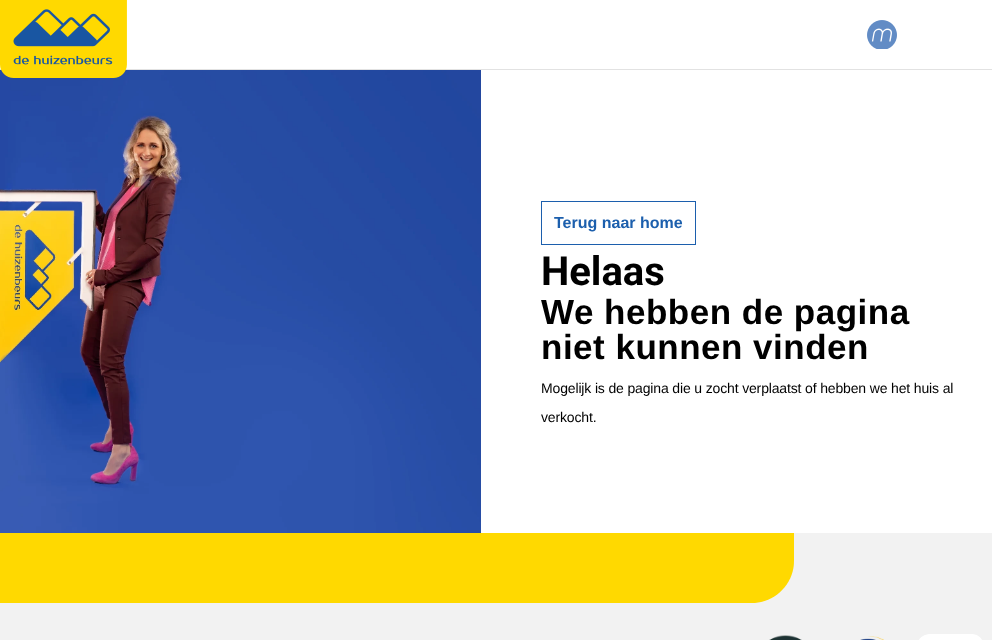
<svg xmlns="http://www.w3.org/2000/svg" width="992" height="640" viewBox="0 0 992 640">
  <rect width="100%" height="100%" fill="#ffffff"/>
  <rect x="0" y="69" width="992" height="1" fill="#e2e2e2"/>
  <image x="0" y="70" width="481" height="463" href="img3.png"/>
  <image x="0" y="0" width="127" height="78" href="img1.png"/>
  <image x="867" y="20" width="30" height="29" href="img2.png"/>
  <rect x="541.5" y="201.5" width="154" height="43" fill="none" stroke="#1c5fad"/>
  <text x="554" y="228" font-family="Liberation Sans" font-size="16" font-weight="bold" fill="#1c5fad">Terug naar home</text>
  <text x="541" y="285" font-family="Roboto" font-size="40" font-weight="bold" fill="#000000">Helaas</text>
  <text x="541" y="324" font-family="Liberation Sans" font-size="35" font-weight="bold" letter-spacing="0.5" fill="#000000">We hebben de pagina</text>
  <text x="541" y="359" font-family="Liberation Sans" font-size="35" font-weight="bold" letter-spacing="0.5" fill="#000000">niet kunnen vinden</text>
  <text x="541" y="393" font-family="Liberation Sans" font-size="14" letter-spacing="-0.15" fill="#000000">Mogelijk is de pagina die u zocht verplaatst of hebben we het huis al</text>
  <text x="541" y="422" font-family="Liberation Sans" font-size="14" letter-spacing="-0.15" fill="#000000">verkocht.</text>
  <rect x="0" y="533" width="992" height="107" fill="#f2f2f2"/>
  <path d="M0 533H794V561C794 584 775 603 752 603H0Z" fill="#ffd900"/>
  <image x="769" y="635" width="33" height="5" href="img4.png"/>
  <image x="860" y="636" width="24" height="4" href="img5.png"/>
  <image x="919" y="634" width="63" height="6" href="img6.png"/>
</svg>
